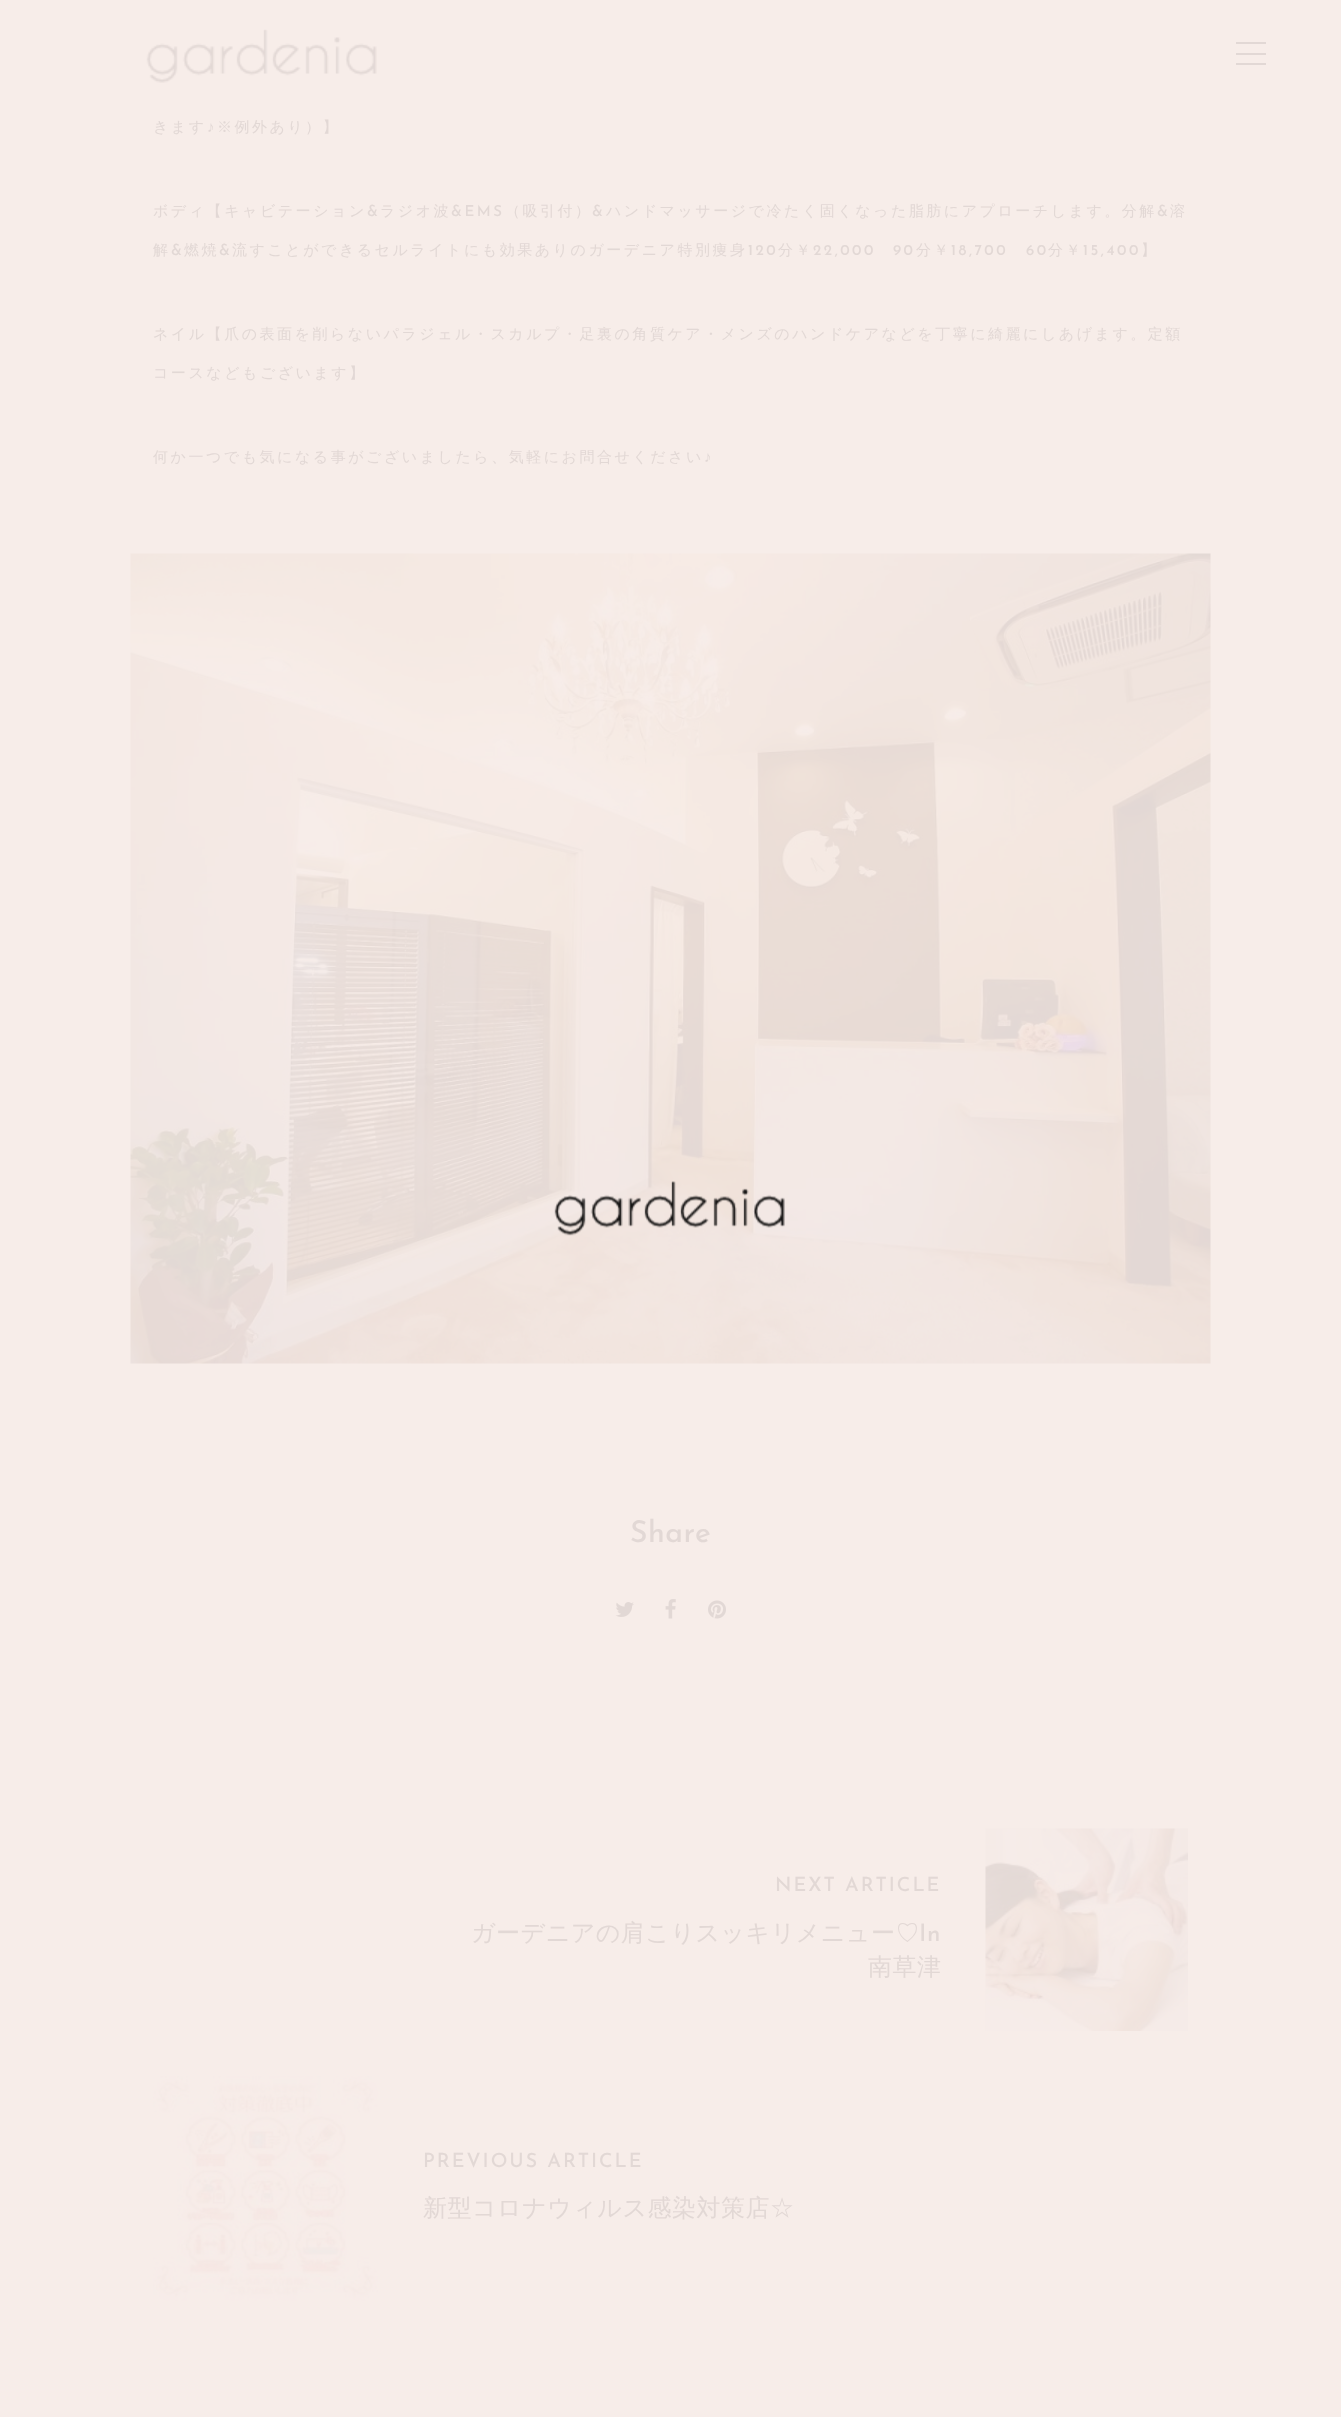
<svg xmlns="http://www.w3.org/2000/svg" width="1341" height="2417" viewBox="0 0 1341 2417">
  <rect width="100%" height="100%" fill="#f7ede9"/>
  <image x="146" y="29" width="231" height="54" href="img1.png"/>
  <rect x="1236" y="63" width="30" height="2" fill="#e2d8d5"/>
  <rect x="1236" y="42" width="30" height="2" fill="#e2d8d5"/>
  <rect x="1236" y="53" width="30" height="2" fill="#e2d8d5"/>
  <text x="153" y="132" font-family="WenQuanYi Zen Hei" font-size="15" font-weight="500" letter-spacing="2.52" fill="#e2d8d5">きます</text>
  <text x="207" y="132" font-family="Liberation Sans" font-size="15" letter-spacing="2.52" fill="#e2d8d5">♪</text>
  <text x="217" y="132" font-family="WenQuanYi Zen Hei" font-size="15" font-weight="500" letter-spacing="2.52" fill="#e2d8d5">※例外あり）】</text>
  <text x="153" y="216" font-family="WenQuanYi Zen Hei" font-size="15" font-weight="500" letter-spacing="2.52" fill="#e2d8d5">ボディ【キャビテーション</text>
  <text x="367" y="216" font-family="Josefin Sans" font-size="15" font-weight="500" letter-spacing="2.52" fill="#e2d8d5">&amp;</text>
  <text x="380" y="216" font-family="WenQuanYi Zen Hei" font-size="15" font-weight="500" letter-spacing="2.52" fill="#e2d8d5">ラジオ波</text>
  <text x="451" y="216" font-family="Josefin Sans" font-size="15" font-weight="500" letter-spacing="2.52" fill="#e2d8d5">&amp;EMS</text>
  <text x="505" y="216" font-family="WenQuanYi Zen Hei" font-size="15" font-weight="500" letter-spacing="2.52" fill="#e2d8d5">（吸引付）</text>
  <text x="592" y="216" font-family="Josefin Sans" font-size="15" font-weight="500" letter-spacing="2.52" fill="#e2d8d5">&amp;</text>
  <text x="606" y="216" font-family="WenQuanYi Zen Hei" font-size="15" font-weight="500" letter-spacing="2.52" fill="#e2d8d5">ハンドマッサージで冷たく固くなった脂肪にアプローチします。分解</text>
  <text x="1157" y="216" font-family="Josefin Sans" font-size="15" font-weight="500" letter-spacing="2.52" fill="#e2d8d5">&amp;</text>
  <text x="1170" y="216" font-family="WenQuanYi Zen Hei" font-size="15" font-weight="500" letter-spacing="2.52" fill="#e2d8d5">溶</text>
  <text x="153" y="255" font-family="WenQuanYi Zen Hei" font-size="15" font-weight="500" letter-spacing="2.52" fill="#e2d8d5">解</text>
  <text x="171" y="255" font-family="Josefin Sans" font-size="15" font-weight="500" letter-spacing="2.52" fill="#e2d8d5">&amp;</text>
  <text x="184" y="255" font-family="WenQuanYi Zen Hei" font-size="15" font-weight="500" letter-spacing="2.52" fill="#e2d8d5">燃焼</text>
  <text x="219" y="255" font-family="Josefin Sans" font-size="15" font-weight="500" letter-spacing="2.52" fill="#e2d8d5">&amp;</text>
  <text x="232" y="255" font-family="WenQuanYi Zen Hei" font-size="15" font-weight="500" letter-spacing="2.52" fill="#e2d8d5">流すことができるセルライトにも効果ありのガーデニア特別痩身</text>
  <text x="748" y="255" font-family="Josefin Sans" font-size="15" font-weight="500" letter-spacing="2.52" fill="#e2d8d5">120</text>
  <text x="778" y="255" font-family="WenQuanYi Zen Hei" font-size="15" font-weight="500" letter-spacing="2.52" fill="#e2d8d5">分￥</text>
  <text x="813" y="255" font-family="Josefin Sans" font-size="15" font-weight="500" letter-spacing="2.52" fill="#e2d8d5">22,000</text>
  <text x="893" y="255" font-family="Josefin Sans" font-size="15" font-weight="500" letter-spacing="2.52" fill="#e2d8d5">90</text>
  <text x="916" y="255" font-family="WenQuanYi Zen Hei" font-size="15" font-weight="500" letter-spacing="2.52" fill="#e2d8d5">分￥</text>
  <text x="951" y="255" font-family="Josefin Sans" font-size="15" font-weight="500" letter-spacing="2.52" fill="#e2d8d5">18,700</text>
  <text x="1026" y="255" font-family="Josefin Sans" font-size="15" font-weight="500" letter-spacing="2.52" fill="#e2d8d5">60</text>
  <text x="1048" y="255" font-family="WenQuanYi Zen Hei" font-size="15" font-weight="500" letter-spacing="2.52" fill="#e2d8d5">分￥</text>
  <text x="1083" y="255" font-family="Josefin Sans" font-size="15" font-weight="500" letter-spacing="2.52" fill="#e2d8d5">15,400</text>
  <text x="1141" y="255" font-family="WenQuanYi Zen Hei" font-size="15" font-weight="500" letter-spacing="2.52" fill="#e2d8d5">】</text>
  <text x="153" y="339" font-family="WenQuanYi Zen Hei" font-size="15" font-weight="500" letter-spacing="2.52" fill="#e2d8d5">ネイル【爪の表面を削らないパラジェル・スカルプ・足裏の角質ケア・メンズのハンドケアなどを丁寧に綺麗にしあげます。定額</text>
  <text x="153" y="378" font-family="WenQuanYi Zen Hei" font-size="15" font-weight="500" letter-spacing="2.52" fill="#e2d8d5">コースなどもございます】</text>
  <text x="153" y="462" font-family="WenQuanYi Zen Hei" font-size="15" font-weight="500" letter-spacing="2.52" fill="#e2d8d5">何か一つでも気になる事がございましたら、気軽にお問合せください</text>
  <text x="704" y="462" font-family="Liberation Sans" font-size="15" letter-spacing="2.52" fill="#e2d8d5">♪</text>
  <image x="130" y="553" width="1081" height="811" href="img2.png"/>
  <text x="630" y="1542" font-family="Josefin Sans" font-size="30" font-weight="500" letter-spacing="0.5" fill="#e2d8d5">Share</text>
  <image x="615" y="1602" width="19" height="15" href="img3.png"/>
  <image x="665" y="1599" width="11" height="20" href="img4.png"/>
  <image x="708" y="1600" width="18" height="19" href="img5.png"/>
  <text x="775" y="1891" font-family="Josefin Sans" font-size="19.5" font-weight="500" letter-spacing="2" fill="#e2d8d5">NEXT ARTICLE</text>
  <text x="471" y="1941" font-family="WenQuanYi Zen Hei" font-size="24" font-weight="500" letter-spacing="0.5" fill="#e2d8d5">ガーデニアの肩こりスッキリメニュー♡</text>
  <text x="919" y="1941" font-family="Josefin Sans" font-size="24" font-weight="500" letter-spacing="0.5" fill="#e2d8d5">In</text>
  <text x="868" y="1975" font-family="WenQuanYi Zen Hei" font-size="24" font-weight="500" letter-spacing="0.5" fill="#e2d8d5">南草津</text>
  <image x="985" y="1828" width="203" height="203" href="img6.png"/>
  <image x="153" y="2076" width="225" height="225" href="img7.png"/>
  <text x="423" y="2167" font-family="Josefin Sans" font-size="19.5" font-weight="500" letter-spacing="2" fill="#e2d8d5">PREVIOUS ARTICLE</text>
  <text x="423" y="2216" font-family="WenQuanYi Zen Hei" font-size="24" font-weight="500" letter-spacing="0.5" fill="#e2d8d5">新型コロナウィルス感染対策店☆</text>
  <image x="554" y="1181" width="231" height="55" href="img8.png"/>
</svg>
